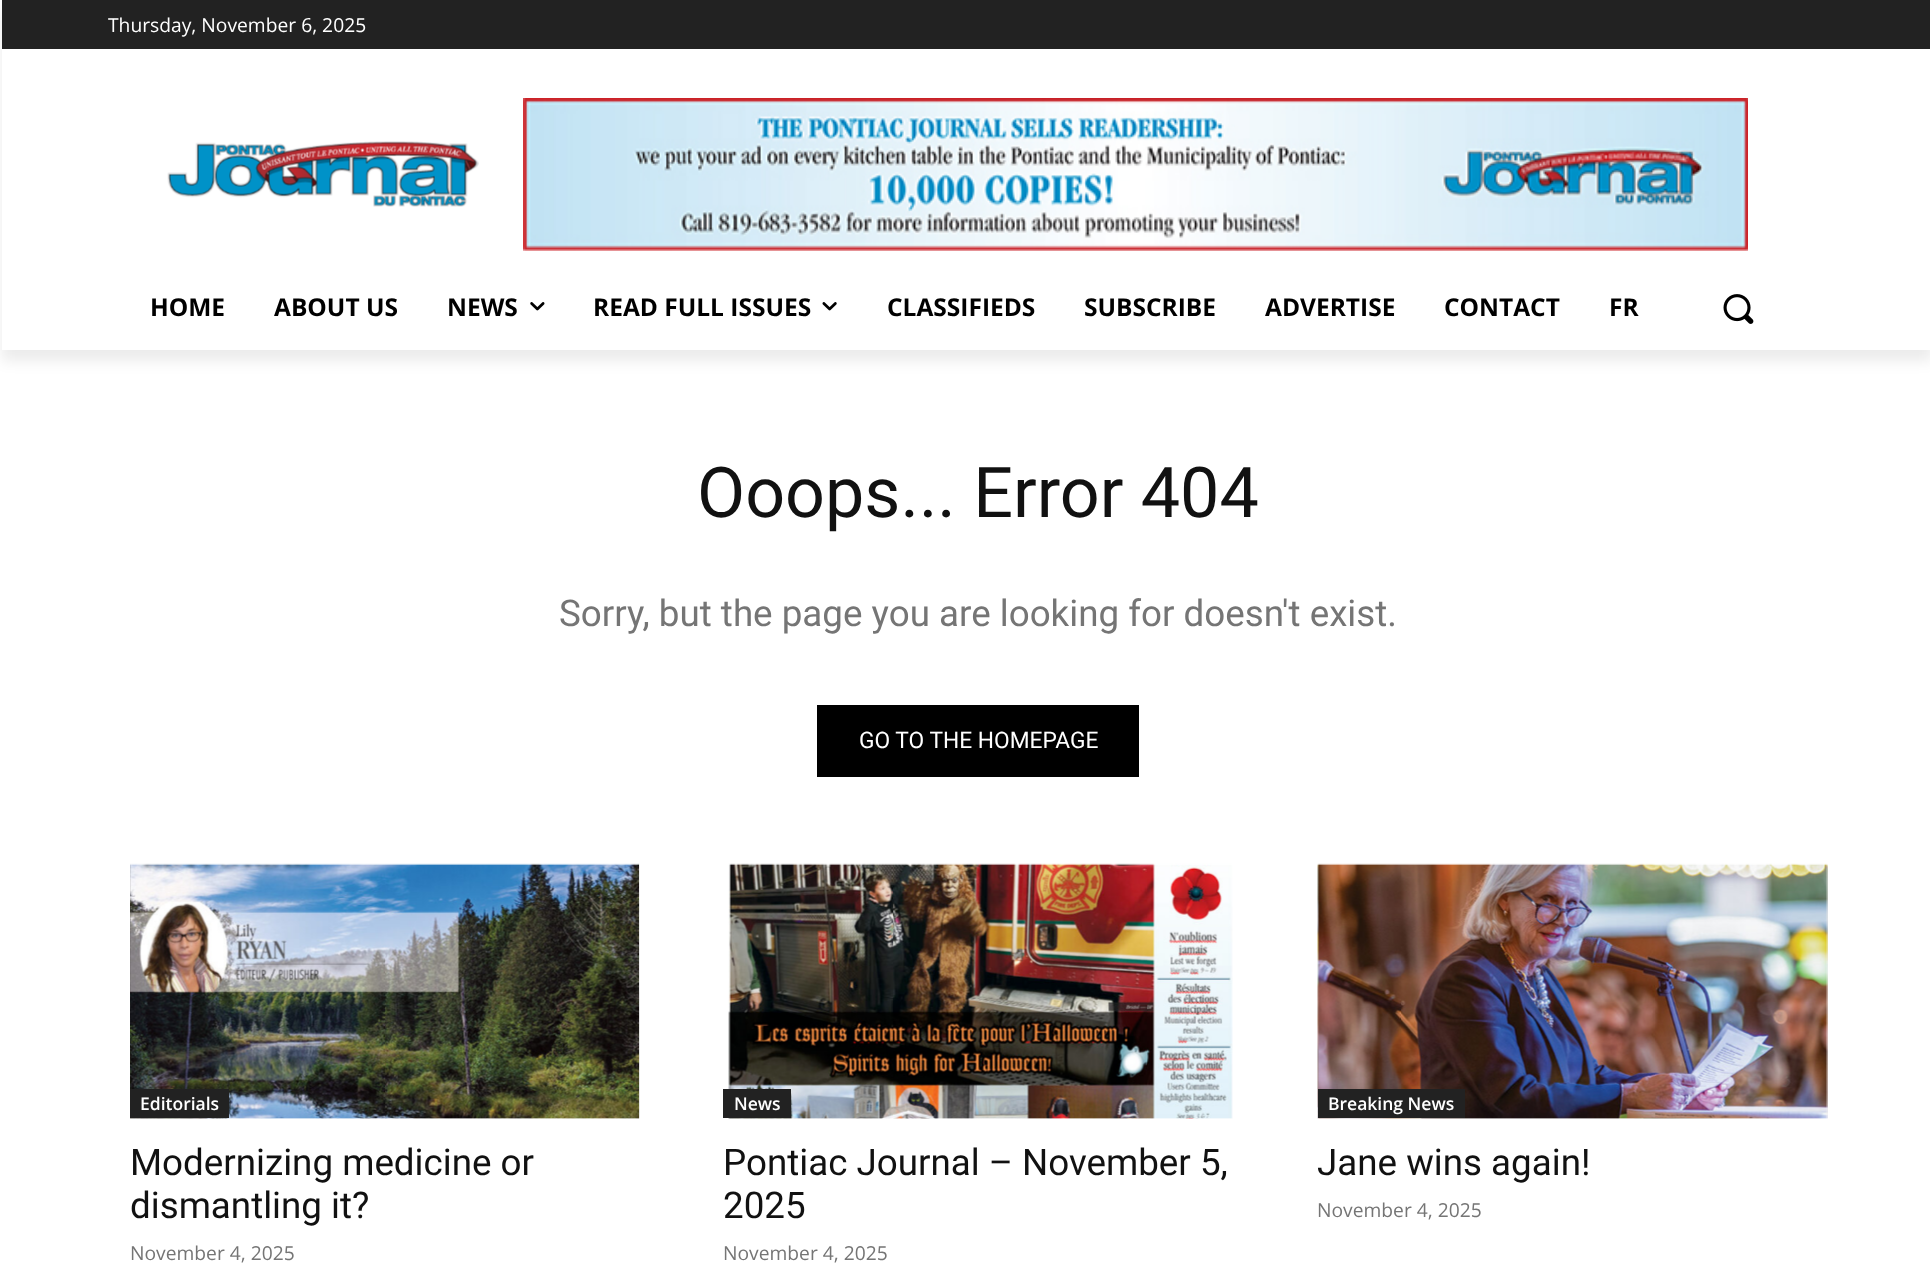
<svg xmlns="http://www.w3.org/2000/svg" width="1930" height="1287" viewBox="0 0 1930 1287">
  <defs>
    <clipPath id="clip1"><path d="M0 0H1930V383H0ZM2 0H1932V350H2Z" clip-rule="evenodd"/></clipPath>
    <filter id="blur1" x="-50%" y="-200%" width="200%" height="500%"><feGaussianBlur stdDeviation="7"/></filter>
  </defs>
  <rect width="100%" height="100%" fill="#ffffff"/>
  <rect x="2" y="0" width="1928" height="49" fill="#222222"/>
  <image x="167" y="141" width="312" height="66" href="img1.png"/>
  <image x="523" y="98" width="1225" height="153" href="img2.png"/>
  <g clip-path="url(#clip1)">
    <rect x="2" y="11" width="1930" height="350" fill="#000000" fill-opacity="0.08" filter="url(#blur1)"/>
  </g>
  <text x="108" y="32" font-family="Open Sans" font-size="19.25" fill="#ffffff">Thursday, November 6, 2025</text>
  <text x="150" y="316" font-family="Open Sans" font-size="24.5" font-weight="bold" fill="#000000">HOME</text>
  <text x="274" y="316" font-family="Open Sans" font-size="24.5" font-weight="bold" fill="#000000">ABOUT US</text>
  <text x="447" y="316" font-family="Open Sans" font-size="24.5" font-weight="bold" fill="#000000">NEWS</text>
  <image x="530" y="302" width="15" height="9" href="img3.png"/>
  <text x="593" y="316" font-family="Open Sans" font-size="24.5" font-weight="bold" fill="#000000">READ FULL ISSUES</text>
  <image x="822" y="302" width="15" height="9" href="img4.png"/>
  <text x="887" y="316" font-family="Open Sans" font-size="24.5" font-weight="bold" fill="#000000">CLASSIFIEDS</text>
  <text x="1084" y="316" font-family="Open Sans" font-size="24.5" font-weight="bold" fill="#000000">SUBSCRIBE</text>
  <text x="1265" y="316" font-family="Open Sans" font-size="24.5" font-weight="bold" fill="#000000">ADVERTISE</text>
  <text x="1444" y="316" font-family="Open Sans" font-size="24.5" font-weight="bold" fill="#000000">CONTACT</text>
  <text x="1609" y="316" font-family="Open Sans" font-size="24.5" font-weight="bold" fill="#000000">FR</text>
  <image x="1723" y="294" width="31" height="30" href="img5.png"/>
  <text x="697" y="517" font-family="Roboto" font-size="70" fill="#111111">Ooops... Error 404</text>
  <text x="559" y="626" font-family="Roboto" font-size="36.75" fill="#757575">Sorry, but the page you are looking for doesn't exist.</text>
  <rect x="817" y="705" width="322" height="72" fill="#000000"/>
  <text x="859" y="748" font-family="Roboto" font-size="22.75" fill="#ffffff">GO TO THE HOMEPAGE</text>
  <image x="130" y="863" width="510" height="256" href="img6.png"/>
  <rect x="130" y="1089" width="99" height="29" fill="#222222"/>
  <text x="140" y="1110" font-family="Open Sans" font-size="17.5" font-weight="600" fill="#ffffff">Editorials</text>
  <text x="130" y="1175" font-family="Roboto" font-size="36.75" fill="#111111">Modernizing medicine or</text>
  <text x="130" y="1218" font-family="Roboto" font-size="36.75" fill="#111111">dismantling it?</text>
  <text x="130" y="1260" font-family="Open Sans" font-size="19.25" fill="#757575">November 4, 2025</text>
  <image x="728" y="863" width="505" height="256" href="img7.png"/>
  <rect x="723" y="1089" width="68" height="29" fill="#222222"/>
  <text x="734" y="1110" font-family="Open Sans" font-size="17.5" font-weight="600" fill="#ffffff">News</text>
  <text x="723" y="1175" font-family="Roboto" font-size="36.75" fill="#111111">Pontiac Journal – November 5,</text>
  <text x="723" y="1218" font-family="Roboto" font-size="36.75" fill="#111111">2025</text>
  <text x="723" y="1260" font-family="Open Sans" font-size="19.25" fill="#757575">November 4, 2025</text>
  <image x="1317" y="863" width="511" height="256" href="img8.png"/>
  <rect x="1318" y="1089" width="147" height="29" fill="#222222"/>
  <text x="1328" y="1110" font-family="Open Sans" font-size="17.5" font-weight="600" fill="#ffffff">Breaking News</text>
  <text x="1317" y="1175" font-family="Roboto" font-size="36.75" fill="#111111">Jane wins again!</text>
  <text x="1317" y="1217" font-family="Open Sans" font-size="19.25" fill="#757575">November 4, 2025</text>
</svg>
